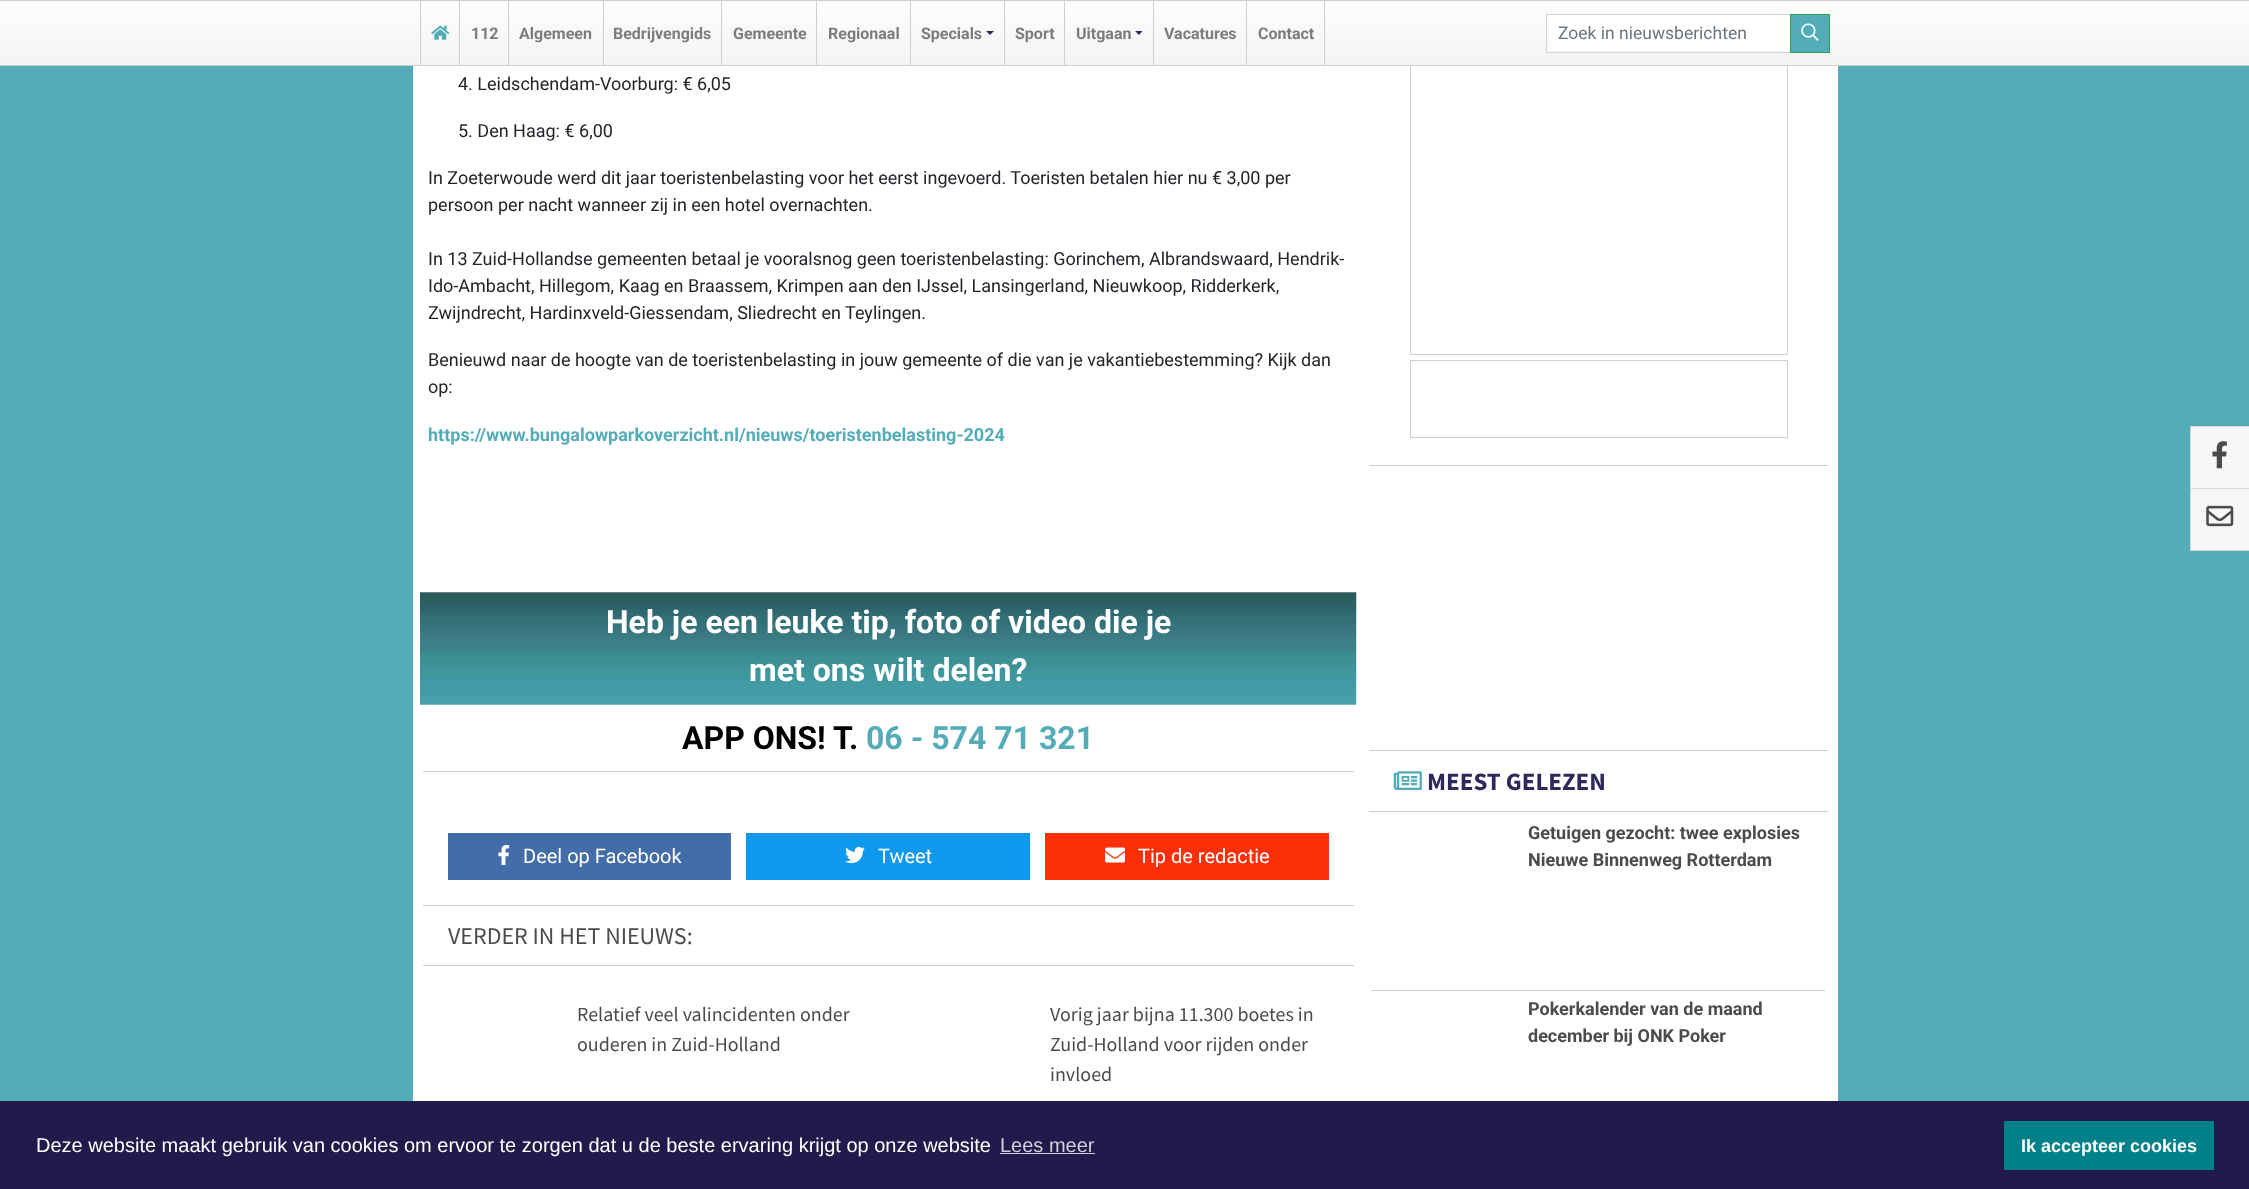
<svg xmlns="http://www.w3.org/2000/svg" width="2249" height="1189" viewBox="0 0 2249 1189">
  <defs>
    <linearGradient id="g1" gradientUnits="userSpaceOnUse" x1="1125" y1="-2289" x2="1125" y2="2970"><stop offset="0" stop-color="#2d2a5b"/><stop offset="0.1" stop-color="#53acb8"/></linearGradient>
    <linearGradient id="g2" gradientUnits="userSpaceOnUse" x1="1125" y1="1.2" x2="1125" y2="65"><stop offset="0" stop-color="#fdfdfd"/><stop offset="1" stop-color="#f4f4f2"/></linearGradient>
  </defs>
  <rect width="100%" height="100%" fill="#ffffff"/>
  <rect x="0" y="66" width="2249" height="1035" fill="url(#g1)"/>
  <rect x="413" y="66" width="1425" height="1035" fill="#ffffff"/>
  <rect x="1410.5" y="-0.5" width="377" height="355" fill="none" stroke="#cfcfcf"/>
  <rect x="0" y="1" width="2249" height="64" fill="url(#g2)"/>
  <rect x="0" y="0" width="2249" height="1" fill="#cfcfcf"/>
  <rect x="0" y="65" width="2249" height="1" fill="#cfcfcf"/>
  <rect x="459" y="1" width="1" height="64" fill="#cfcfcf"/>
  <rect x="420" y="1" width="1" height="64" fill="#cfcfcf"/>
  <image x="431" y="25" width="19" height="15" href="img1.png"/>
  <rect x="508" y="1" width="1" height="64" fill="#cfcfcf"/>
  <text x="471" y="39" font-family="Roboto" font-size="16" font-weight="bold" fill="#7c7c7c">112</text>
  <rect x="603" y="1" width="1" height="64" fill="#cfcfcf"/>
  <text x="519" y="39" font-family="Roboto" font-size="16" font-weight="bold" fill="#7c7c7c">Algemeen</text>
  <rect x="721" y="1" width="1" height="64" fill="#cfcfcf"/>
  <text x="613" y="39" font-family="Roboto" font-size="16" font-weight="bold" fill="#7c7c7c">Bedrijvengids</text>
  <rect x="816" y="1" width="1" height="64" fill="#cfcfcf"/>
  <text x="733" y="39" font-family="Roboto" font-size="16" font-weight="bold" fill="#7c7c7c">Gemeente</text>
  <rect x="910" y="1" width="1" height="64" fill="#cfcfcf"/>
  <text x="828" y="39" font-family="Roboto" font-size="16" font-weight="bold" fill="#7c7c7c">Regionaal</text>
  <rect x="1004" y="1" width="1" height="64" fill="#cfcfcf"/>
  <text x="921" y="39" font-family="Roboto" font-size="16" font-weight="bold" fill="#7c7c7c">Specials</text>
  <path d="M986 31H994L990 35Z" fill="#2d2a5b"/>
  <rect x="1064" y="1" width="1" height="64" fill="#cfcfcf"/>
  <text x="1015" y="39" font-family="Roboto" font-size="16" font-weight="bold" fill="#7c7c7c">Sport</text>
  <rect x="1153" y="1" width="1" height="64" fill="#cfcfcf"/>
  <text x="1076" y="39" font-family="Roboto" font-size="16" font-weight="bold" fill="#7c7c7c">Uitgaan</text>
  <path d="M1135 31H1142.5L1139 35Z" fill="#2d2a5b"/>
  <rect x="1246" y="1" width="1" height="64" fill="#cfcfcf"/>
  <text x="1164" y="39" font-family="Roboto" font-size="16" font-weight="bold" fill="#7c7c7c">Vacatures</text>
  <rect x="1324" y="1" width="1" height="64" fill="#cfcfcf"/>
  <text x="1258" y="39" font-family="Roboto" font-size="16" font-weight="bold" fill="#7c7c7c">Contact</text>
  <rect x="1548" y="15" width="242" height="36" fill="#ffffff"/>
  <rect x="1546.5" y="14.5" width="244" height="38" fill="none" stroke="#ced4da"/>
  <text x="1558" y="39" font-family="Roboto" font-size="17.5" fill="#6c757d">Zoek in nieuwsberichten</text>
  <rect x="1790.5" y="14.5" width="39" height="38" fill="#53acb8" stroke="#28a745"/>
  <image x="1801" y="23" width="18" height="18" href="img2.png"/>
  <text x="458" y="90" font-family="Roboto" font-size="18" fill="#212529">4. Leidschendam-Voorburg: € 6,05</text>
  <text x="458" y="137" font-family="Roboto" font-size="18" fill="#212529">5. Den Haag: € 6,00</text>
  <text x="428" y="184" font-family="Roboto" font-size="18" fill="#212529">In Zoeterwoude werd dit jaar toeristenbelasting voor het eerst ingevoerd. Toeristen betalen hier nu € 3,00 per</text>
  <text x="428" y="211" font-family="Roboto" font-size="18" fill="#212529">persoon per nacht wanneer zij in een hotel overnachten.</text>
  <text x="428" y="265" font-family="Roboto" font-size="18" fill="#212529">In 13 Zuid-Hollandse gemeenten betaal je vooralsnog geen toeristenbelasting: Gorinchem, Albrandswaard, Hendrik-</text>
  <text x="428" y="292" font-family="Roboto" font-size="18" fill="#212529">Ido-Ambacht, Hillegom, Kaag en Braassem, Krimpen aan den IJssel, Lansingerland, Nieuwkoop, Ridderkerk,</text>
  <text x="428" y="319" font-family="Roboto" font-size="18" fill="#212529">Zwijndrecht, Hardinxveld-Giessendam, Sliedrecht en Teylingen.</text>
  <text x="428" y="366" font-family="Roboto" font-size="18" fill="#212529">Benieuwd naar de hoogte van de toeristenbelasting in jouw gemeente of die van je vakantiebestemming? Kijk dan</text>
  <text x="428" y="393" font-family="Roboto" font-size="18" fill="#212529">op:</text>
  <text x="428" y="441" font-family="Roboto" font-size="18" font-weight="bold" fill="#53acb8">https://www.bungalowparkoverzicht.nl/nieuws/toeristenbelasting-2024</text>
  <image x="420" y="592" width="937" height="113" href="img3.png"/>
  <text x="606" y="633" font-family="Roboto" font-size="32" font-weight="bold" fill="#ffffff">Heb je een leuke tip, foto of video die je</text>
  <text x="749" y="681" font-family="Roboto" font-size="32" font-weight="bold" fill="#ffffff">met ons wilt delen?</text>
  <text x="682" y="749" font-family="Roboto" font-size="32" font-weight="bold" fill="#000000">APP ONS!</text>
  <text x="833" y="749" font-family="Roboto" font-size="32" font-weight="bold" fill="#000000">T.</text>
  <text x="866" y="749" font-family="Roboto" font-size="32" font-weight="bold" fill="#53acb8">06 - 574 71 321</text>
  <rect x="423" y="771" width="931" height="1" fill="#cfcfcf"/>
  <rect x="448" y="833" width="283" height="47" fill="#436da9"/>
  <image x="498" y="845" width="12" height="20" href="img4.png"/>
  <text x="523" y="863" font-family="Roboto" font-size="20" fill="#ffffff">Deel op Facebook</text>
  <rect x="746" y="833" width="284" height="47" fill="#0e99ec"/>
  <image x="845" y="846" width="20" height="18" href="img5.png"/>
  <text x="878" y="863" font-family="Roboto" font-size="20" fill="#ffffff">Tweet</text>
  <rect x="1045" y="833" width="284" height="47" fill="#fd2f08"/>
  <image x="1105" y="847" width="20" height="16" href="img6.png"/>
  <text x="1138" y="863" font-family="Roboto" font-size="20" fill="#ffffff">Tip de redactie</text>
  <rect x="423" y="905" width="931" height="1" fill="#cfcfcf"/>
  <rect x="423" y="965" width="931" height="1" fill="#cfcfcf"/>
  <text x="448" y="944" font-family="Source Sans Pro" font-size="24" fill="#4c4b4b">VERDER IN HET NIEUWS:</text>
  <text x="577" y="1021" font-family="Source Sans Pro" font-size="20" fill="#4c4b4b">Relatief veel valincidenten onder</text>
  <text x="577" y="1051" font-family="Source Sans Pro" font-size="20" fill="#4c4b4b">ouderen in Zuid-Holland</text>
  <text x="1050" y="1021" font-family="Source Sans Pro" font-size="20" fill="#4c4b4b">Vorig jaar bijna 11.300 boetes in</text>
  <text x="1050" y="1051" font-family="Source Sans Pro" font-size="20" fill="#4c4b4b">Zuid-Holland voor rijden onder</text>
  <text x="1050" y="1081" font-family="Source Sans Pro" font-size="20" fill="#4c4b4b">invloed</text>
  <rect x="1369" y="465" width="459" height="1" fill="#cfcfcf"/>
  <rect x="1410.5" y="360.5" width="377" height="77" fill="none" stroke="#cfcfcf"/>
  <rect x="1369" y="750" width="459" height="1" fill="#cfcfcf"/>
  <rect x="1369" y="811" width="459" height="1" fill="#cfcfcf"/>
  <image x="1393" y="771" width="29" height="19" href="img7.png"/>
  <text x="1427" y="790" font-family="Source Sans Pro" font-size="25" font-weight="bold" fill="#2d2a5b">MEEST GELEZEN</text>
  <rect x="1371" y="990" width="454" height="1" fill="#cfcfcf"/>
  <text x="1528" y="839" font-family="Roboto" font-size="18" font-weight="bold" fill="#4c4b4b">Getuigen gezocht: twee explosies</text>
  <text x="1528" y="866" font-family="Roboto" font-size="18" font-weight="bold" fill="#4c4b4b">Nieuwe Binnenweg Rotterdam</text>
  <text x="1528" y="1015" font-family="Roboto" font-size="18" font-weight="bold" fill="#4c4b4b">Pokerkalender van de maand</text>
  <text x="1528" y="1042" font-family="Roboto" font-size="18" font-weight="bold" fill="#4c4b4b">december bij ONK Poker</text>
  <rect x="2190.5" y="426.5" width="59" height="62" fill="#f6f6f6" stroke="#d7d7d7"/>
  <image x="2212" y="441" width="15" height="28" href="img8.png"/>
  <rect x="2190.5" y="488.5" width="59" height="62" fill="#f6f6f6" stroke="#d7d7d7"/>
  <image x="2206" y="505" width="28" height="22" href="img9.png"/>
  <rect x="0" y="1101" width="2249" height="88" fill="#201b4a"/>
  <text x="36" y="1152" font-family="Liberation Sans" font-size="20" fill="#ffffff">Deze website maakt gebruik van cookies om ervoor te zorgen dat u de beste ervaring krijgt op onze website</text>
  <text x="1000" y="1152" font-family="Liberation Sans" font-size="20" fill="#d2d1db">Lees meer</text>
  <rect x="1000" y="1153" width="95" height="1" fill="#d2d1db"/>
  <rect x="2004" y="1121" width="210" height="49" fill="#00818a"/>
  <text x="2021" y="1152" font-family="Liberation Sans" font-size="18" font-weight="bold" fill="#ffffff">Ik accepteer cookies</text>
</svg>
